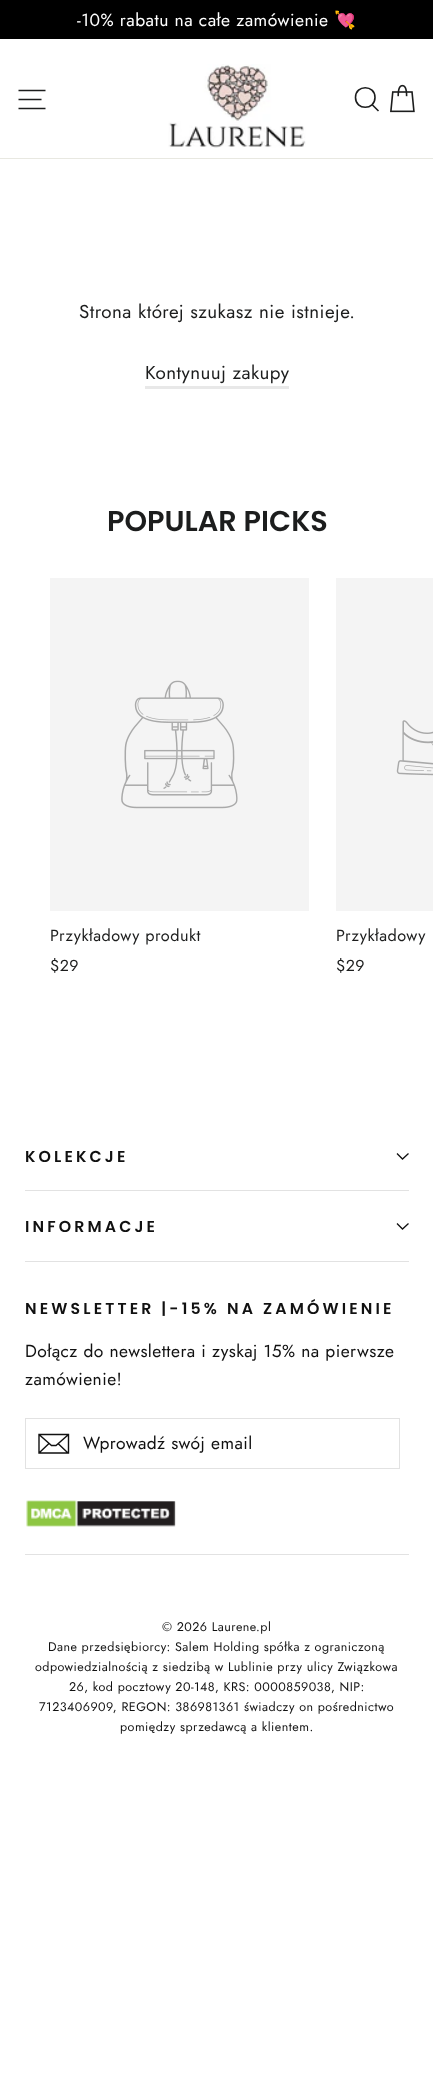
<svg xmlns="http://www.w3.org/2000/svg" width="433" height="2082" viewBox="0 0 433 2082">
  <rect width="100%" height="100%" fill="#ffffff"/>
  <rect x="0" y="0" width="433" height="39" fill="#000000"/>
  <text x="77" y="26" font-family="Jost" font-size="17.5" letter-spacing="0.47" fill="#ffffff">-10% rabatu na całe zamówienie</text>
  <text x="334" y="26" font-family="Noto Color Emoji" font-size="17.5" letter-spacing="0.47" fill="#ffffff">💘</text>
  <rect x="0" y="158" width="433" height="1" fill="#e8e8e1"/>
  <path d="M18.5 90.5H45.5M18.5 99.5H41.5M18.5 108.5H45.5" fill="none" stroke="#1c1d1d" stroke-width="1.6"/>
  <image x="168" y="64" width="138" height="84" href="img1.png"/>
  <path d="M375 97.5C375 110.5 355.5 110.5 355.5 97.5C355.5 84.5 375 84.5 375 97.5ZM378.5 111L372 104.5" fill="none" stroke="#1c1d1d" stroke-width="1.6"/>
  <image x="390" y="84" width="25" height="29" href="img2.png"/>
  <text x="79" y="318" font-family="Jost" font-size="18.75" letter-spacing="0.47" fill="#1c1d1d">Strona której szukasz nie istnieje.</text>
  <text x="145" y="379" font-family="Jost" font-size="18.75" letter-spacing="0.47" fill="#1c1d1d">Kontynuuj zakupy</text>
  <rect x="145" y="386" width="144" height="3" fill="#e8e8e8"/>
  <text x="107" y="531" font-family="Poppins" font-size="28.75" font-weight="600" fill="#1c1d1d">POPULAR PICKS</text>
  <rect x="50" y="578" width="259" height="333" fill="#f4f4f4"/>
  <image x="121" y="680" width="117" height="129" href="img3.png"/>
  <text x="50" y="941" font-family="Jost" font-size="16.25" letter-spacing="0.47" fill="#1c1d1d">Przykładowy produkt</text>
  <text x="50" y="971" font-family="Jost" font-size="16" letter-spacing="0.47" fill="#1c1d1d">$29</text>
  <rect x="336" y="578" width="97" height="333" fill="#f4f4f4"/>
  <image x="396" y="720" width="37" height="56" href="img4.png"/>
  <text x="336" y="941" font-family="Jost" font-size="16.25" letter-spacing="0.47" fill="#1c1d1d">Przykładowy</text>
  <text x="336" y="971" font-family="Jost" font-size="16" letter-spacing="0.47" fill="#1c1d1d">$29</text>
  <text x="25" y="1162" font-family="Poppins" font-size="15.75" font-weight="600" letter-spacing="3.15" fill="#111111">KOLEKCJE</text>
  <path d="M397 1153.5L402.5 1159L408.5 1153.5" fill="none" stroke="#111111" stroke-width="1.3"/>
  <rect x="25" y="1190" width="384" height="1" fill="#e2e2e2"/>
  <text x="25" y="1232" font-family="Poppins" font-size="15.75" font-weight="600" letter-spacing="3.15" fill="#111111">INFORMACJE</text>
  <path d="M397 1223.5L402.5 1229L408.5 1223.5" fill="none" stroke="#111111" stroke-width="1.3"/>
  <rect x="25" y="1261" width="384" height="1" fill="#e2e2e2"/>
  <text x="25" y="1314" font-family="Poppins" font-size="15.75" font-weight="600" letter-spacing="3.15" fill="#111111">NEWSLETTER |-15% NA ZAMÓWIENIE</text>
  <text x="25" y="1357" font-family="Jost" font-size="17.4" letter-spacing="0.45" fill="#111111">Dołącz do newslettera i zyskaj 15% na pierwsze</text>
  <text x="25" y="1385" font-family="Jost" font-size="17.4" letter-spacing="0.45" fill="#111111">zamówienie!</text>
  <rect x="25.5" y="1418.5" width="374" height="50" fill="none" stroke="#e2e2e2"/>
  <path d="M68.5 1453H39V1434.5H68.5ZM39 1434.5L51.5 1445.5H56L68.5 1434.5M49 1443.5L39.5 1452.5M68 1453L58 1443.5" fill="none" stroke="#111111" stroke-width="1.4"/>
  <text x="83" y="1449" font-family="Jost" font-size="17.4" letter-spacing="0.45" fill="#111111">Wprowadź swój email</text>
  <image x="26" y="1500" width="150" height="27" href="img5.png"/>
  <rect x="25" y="1554" width="384" height="1" fill="#e2e2e2"/>
  <text x="162" y="1631" font-family="Jost" font-size="12.5" letter-spacing="0.47" fill="#111111">© 2026 Laurene.pl</text>
  <text x="48" y="1651" font-family="Jost" font-size="12.5" letter-spacing="0.47" fill="#111111">Dane przedsiębiorcy: Salem Holding spółka z ograniczoną</text>
  <text x="35" y="1671" font-family="Jost" font-size="12.5" letter-spacing="0.47" fill="#111111">odpowiedzialnością z siedzibą w Lublinie przy ulicy Związkowa</text>
  <text x="69" y="1691" font-family="Jost" font-size="12.5" letter-spacing="0.47" fill="#111111">26, kod pocztowy 20-148, KRS: 0000859038, NIP:</text>
  <text x="39" y="1711" font-family="Jost" font-size="12.5" letter-spacing="0.47" fill="#111111">7123406909, REGON: 386981361 świadczy on pośrednictwo</text>
  <text x="120" y="1731" font-family="Jost" font-size="12.5" letter-spacing="0.47" fill="#111111">pomiędzy sprzedawcą a klientem.</text>
</svg>
